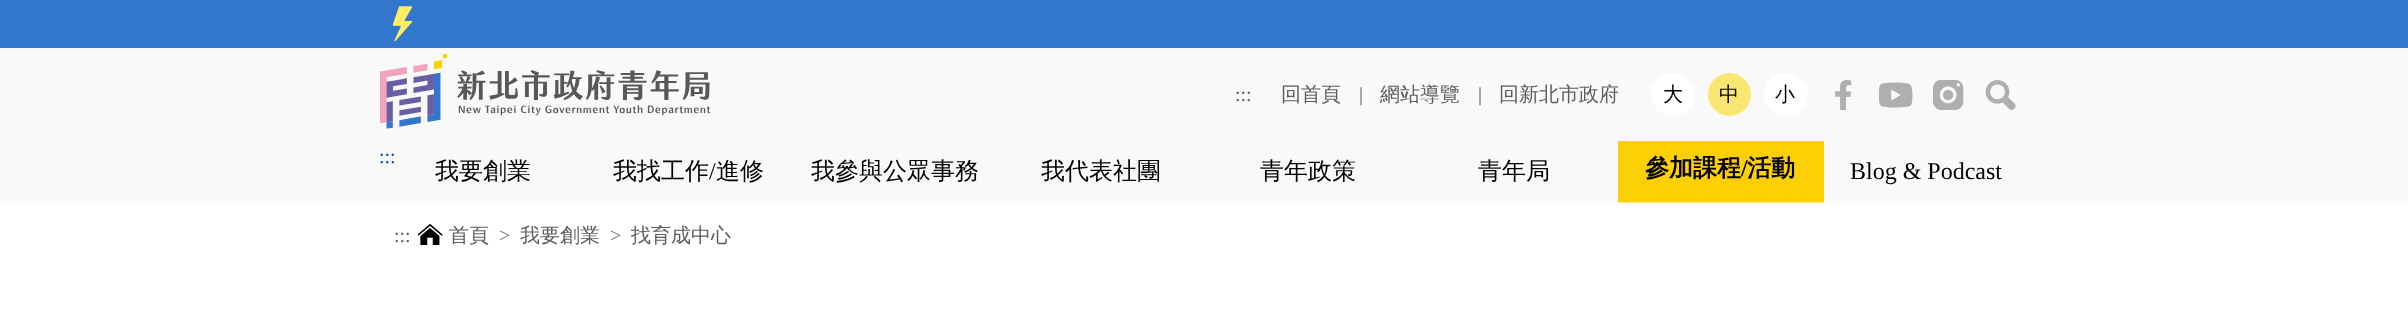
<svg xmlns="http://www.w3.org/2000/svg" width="2408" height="313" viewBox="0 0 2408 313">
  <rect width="100%" height="100%" fill="#ffffff"/>
  <rect x="0" y="0" width="2408" height="48" fill="#3376cd"/>
  <image x="393" y="6" width="20" height="35" href="img1.png"/>
  <rect x="0" y="48" width="2408" height="155" fill="#f9f9f9"/>
  <image x="380" y="54" width="330" height="75" href="img2.png"/>
  <text x="1235" y="101" font-family="Liberation Serif" font-size="20" fill="#5d5d5d">:::</text>
  <text x="1281" y="101" font-family="WenQuanYi Zen Hei" font-size="20" font-weight="500" fill="#5d5d5d">回首頁</text>
  <text x="1359" y="101" font-family="Liberation Serif" font-size="20" fill="#5d5d5d">|</text>
  <text x="1380" y="101" font-family="WenQuanYi Zen Hei" font-size="20" font-weight="500" fill="#5d5d5d">網站導覽</text>
  <text x="1478" y="101" font-family="Liberation Serif" font-size="20" fill="#5d5d5d">|</text>
  <text x="1499" y="101" font-family="WenQuanYi Zen Hei" font-size="20" font-weight="500" fill="#5d5d5d">回新北市政府</text>
  <rect x="1651" y="73" width="44" height="43" rx="21.5" fill="#ffffff"/>
  <text x="1663" y="101" font-family="WenQuanYi Zen Hei" font-size="20" font-weight="500" fill="#000000">大</text>
  <circle cx="1729.5" cy="94.5" r="21.5" fill="#fae773"/>
  <text x="1719" y="101" font-family="WenQuanYi Zen Hei" font-size="20" font-weight="500" fill="#000000">中</text>
  <rect x="1764" y="73" width="44" height="43" rx="21.5" fill="#ffffff"/>
  <text x="1775" y="101" font-family="WenQuanYi Zen Hei" font-size="20" font-weight="500" fill="#000000">小</text>
  <image x="1835" y="80" width="17" height="30" href="img3.png"/>
  <image x="1879" y="82" width="34" height="26" href="img4.png"/>
  <image x="1933" y="80" width="31" height="30" href="img5.png"/>
  <image x="1985" y="80" width="31" height="30" href="img6.png"/>
  <text x="379" y="163" font-family="Liberation Serif" font-size="20" fill="#024bb7">:::</text>
  <text x="435" y="179" font-family="WenQuanYi Zen Hei" font-size="24" font-weight="500" fill="#000000">我要創業</text>
  <text x="613" y="179" font-family="WenQuanYi Zen Hei" font-size="24" font-weight="500" fill="#000000">我找工作</text>
  <text x="709" y="179" font-family="Liberation Serif" font-size="24" fill="#000000">/</text>
  <text x="716" y="179" font-family="WenQuanYi Zen Hei" font-size="24" font-weight="500" fill="#000000">進修</text>
  <text x="811" y="179" font-family="WenQuanYi Zen Hei" font-size="24" font-weight="500" fill="#000000">我參與公眾事務</text>
  <text x="1041" y="179" font-family="WenQuanYi Zen Hei" font-size="24" font-weight="500" fill="#000000">我代表社團</text>
  <text x="1260" y="179" font-family="WenQuanYi Zen Hei" font-size="24" font-weight="500" fill="#000000">青年政策</text>
  <text x="1478" y="179" font-family="WenQuanYi Zen Hei" font-size="24" font-weight="500" fill="#000000">青年局</text>
  <rect x="1618" y="141" width="206" height="61" fill="#fcd005"/>
  <text x="1645" y="176" font-family="WenQuanYi Zen Hei" font-size="24" font-weight="bold" fill="#000000">參加課程</text>
  <text x="1741" y="176" font-family="Liberation Serif" font-size="24" font-weight="bold" fill="#000000">/</text>
  <text x="1747" y="176" font-family="WenQuanYi Zen Hei" font-size="24" font-weight="bold" fill="#000000">活動</text>
  <text x="1850" y="179" font-family="Liberation Serif" font-size="24" fill="#000000">Blog &amp; Podcast</text>
  <rect x="1618" y="202" width="206" height="1" fill="#fee882"/>
  <text x="394" y="242" font-family="Liberation Serif" font-size="20" fill="#5d5d5d">:::</text>
  <image x="418" y="224" width="25" height="21" href="img7.png"/>
  <text x="449" y="242" font-family="WenQuanYi Zen Hei" font-size="20" font-weight="500" fill="#5d5d5d">首頁</text>
  <text x="499" y="242" font-family="Liberation Serif" font-size="20" fill="#6c757d">&gt;</text>
  <text x="520" y="242" font-family="WenQuanYi Zen Hei" font-size="20" font-weight="500" fill="#5d5d5d">我要創業</text>
  <text x="610" y="242" font-family="Liberation Serif" font-size="20" fill="#6c757d">&gt;</text>
  <text x="631" y="242" font-family="WenQuanYi Zen Hei" font-size="20" font-weight="500" fill="#5d5d5d">找育成中心</text>
</svg>
